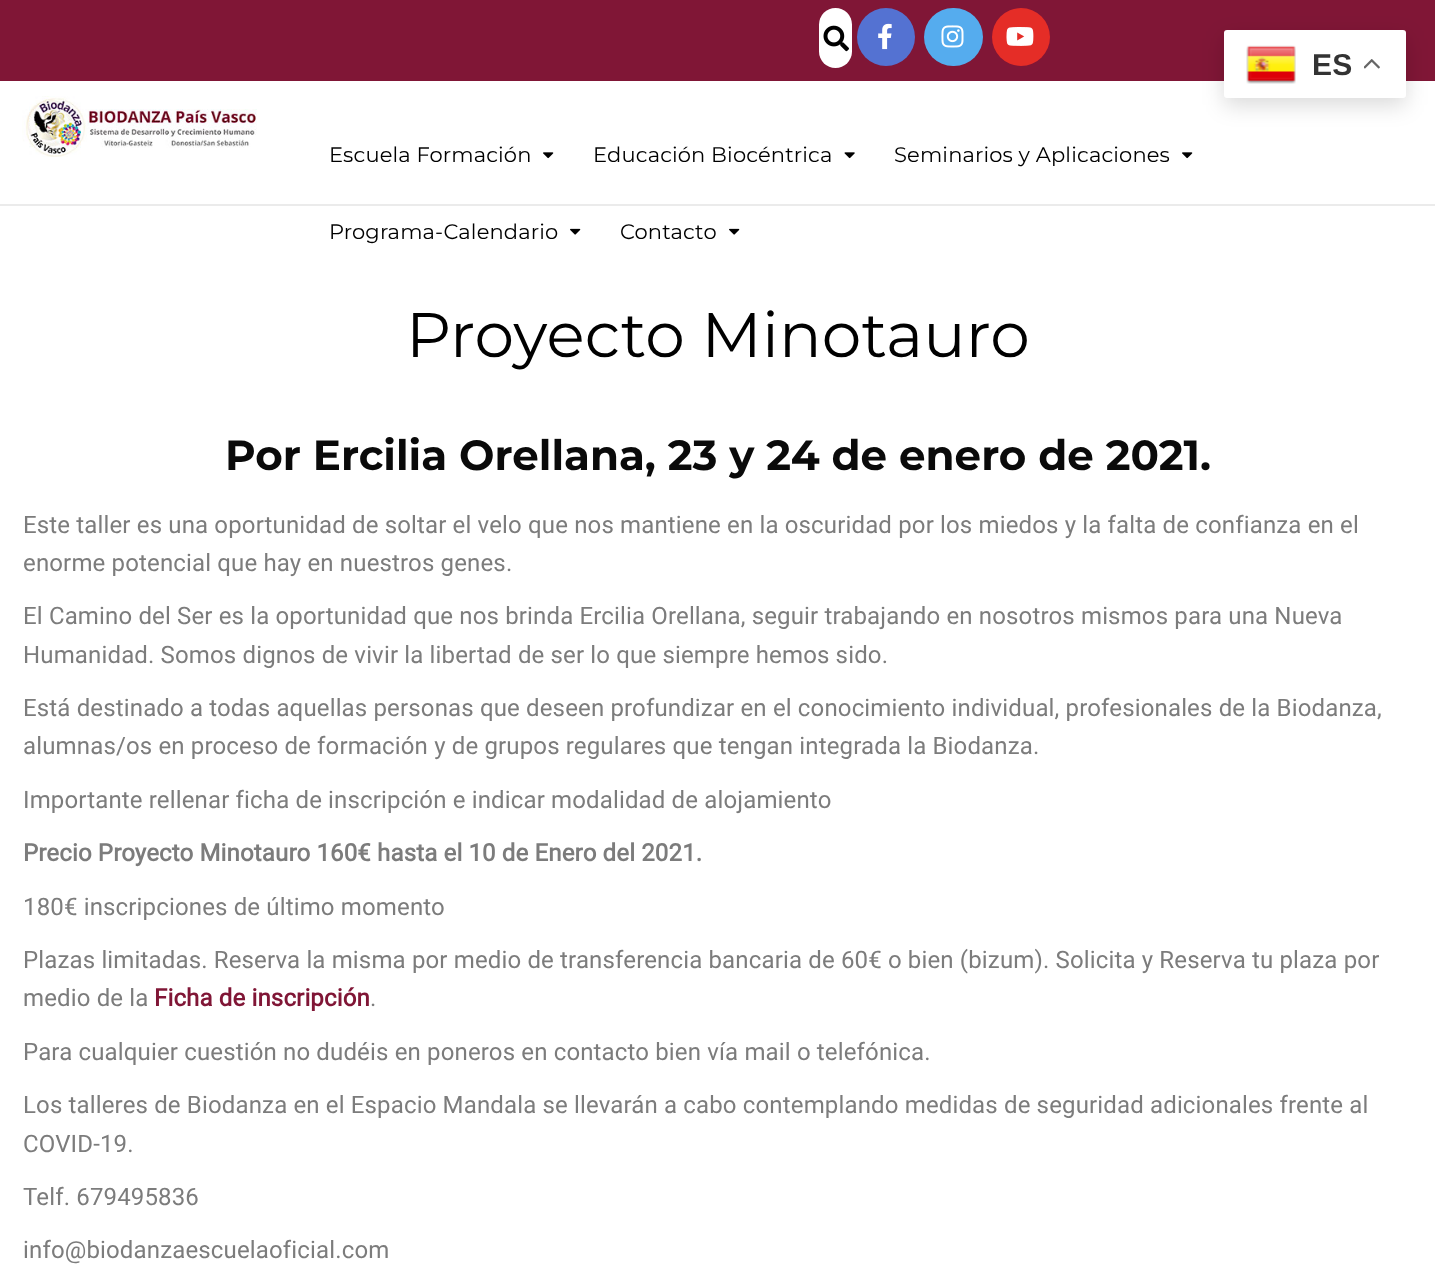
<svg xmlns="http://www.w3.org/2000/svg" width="1435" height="1274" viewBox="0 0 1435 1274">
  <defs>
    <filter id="blur1" x="-50%" y="-200%" width="200%" height="500%"><feGaussianBlur stdDeviation="11"/></filter>
  </defs>
  <rect width="100%" height="100%" fill="#ffffff"/>
  <rect x="0" y="0" width="1435" height="81" fill="#801636"/>
  <rect x="1224" y="38" width="182" height="67" rx="3" fill="#000000" fill-opacity="0.15" filter="url(#blur1)"/>
  <rect x="1224" y="30" width="182" height="68" rx="3" fill="#ffffff"/>
  <image x="1246" y="45" width="50" height="39" href="img1.png"/>
  <text x="1312" y="75" font-family="Liberation Sans" font-size="30" font-weight="bold" letter-spacing="0.15" fill="#333333">ES</text>
  <image x="1364" y="59" width="16" height="10" href="img2.png"/>
  <rect x="0" y="204" width="1435" height="2" fill="#ebebeb"/>
  <rect x="819" y="8" width="33" height="60" rx="16.5" fill="#ffffff"/>
  <image x="823" y="25" width="26" height="27" href="img3.png"/>
  <circle cx="886" cy="37" r="29" fill="#5472d2"/>
  <image x="878" y="23" width="14" height="27" href="img4.png"/>
  <rect x="924" y="8" width="59" height="58" rx="29" fill="#55acee"/>
  <image x="941" y="25" width="23" height="23" href="img5.png"/>
  <circle cx="1021" cy="37" r="29" fill="#e52d27"/>
  <image x="1006" y="27" width="28" height="19" href="img6.png"/>
  <image x="22" y="96" width="235" height="61" href="img7.png"/>
  <text x="329" y="162" font-family="Montserrat" font-size="21" letter-spacing="0.15" fill="#000000">Escuela Formación</text>
  <image x="543" y="152" width="11" height="7" href="img8.png"/>
  <text x="593" y="162" font-family="Montserrat" font-size="21" letter-spacing="0.15" fill="#000000">Educación Biocéntrica</text>
  <image x="844" y="152" width="11" height="7" href="img9.png"/>
  <text x="894" y="162" font-family="Montserrat" font-size="21" letter-spacing="0.15" fill="#000000">Seminarios y Aplicaciones</text>
  <image x="1182" y="152" width="11" height="7" href="img8.png"/>
  <text x="329" y="239" font-family="Montserrat" font-size="21" letter-spacing="0.15" fill="#000000">Programa-Calendario</text>
  <image x="570" y="228" width="11" height="7" href="img10.png"/>
  <text x="620" y="239" font-family="Montserrat" font-size="21" letter-spacing="0.15" fill="#000000">Contacto</text>
  <image x="729" y="228" width="11" height="7" href="img10.png"/>
  <text x="406" y="357" font-family="Montserrat" font-size="63" letter-spacing="0.15" fill="#000000">Proyecto Minotauro</text>
  <text x="225" y="470" font-family="Montserrat" font-size="42" font-weight="bold" fill="#0a0a0a">Por Ercilia Orellana, 23 y 24 de enero de 2021.</text>
  <text x="23" y="533" font-family="Roboto" font-size="24" letter-spacing="0.15" fill="#7c7c7c">Este taller es una oportunidad de soltar el velo que nos mantiene en la oscuridad por los miedos y la falta de confianza en el</text>
  <text x="23" y="571" font-family="Roboto" font-size="24" letter-spacing="0.15" fill="#7c7c7c">enorme potencial que hay en nuestros genes.</text>
  <text x="23" y="624" font-family="Roboto" font-size="24" letter-spacing="0.15" fill="#7c7c7c">El Camino del Ser es la oportunidad que nos brinda Ercilia Orellana, seguir trabajando en nosotros mismos para una Nueva</text>
  <text x="23" y="663" font-family="Roboto" font-size="24" letter-spacing="0.15" fill="#7c7c7c">Humanidad. Somos dignos de vivir la libertad de ser lo que siempre hemos sido.</text>
  <text x="23" y="716" font-family="Roboto" font-size="24" letter-spacing="0.15" fill="#7c7c7c">Está destinado a todas aquellas personas que deseen profundizar en el conocimiento individual, profesionales de la Biodanza,</text>
  <text x="23" y="754" font-family="Roboto" font-size="24" letter-spacing="0.15" fill="#7c7c7c">alumnas/os en proceso de formación y de grupos regulares que tengan integrada la Biodanza.</text>
  <text x="23" y="808" font-family="Roboto" font-size="24" letter-spacing="0.15" fill="#7c7c7c">Importante rellenar ficha de inscripción e indicar modalidad de alojamiento</text>
  <text x="23" y="861" font-family="Roboto" font-size="24" font-weight="bold" letter-spacing="0.15" fill="#7c7c7c">Precio Proyecto Minotauro 160€ hasta el 10 de Enero del 2021.</text>
  <text x="23" y="915" font-family="Roboto" font-size="24" letter-spacing="0.15" fill="#7c7c7c">180€ inscripciones de último momento</text>
  <text x="23" y="968" font-family="Roboto" font-size="24" letter-spacing="0.15" fill="#7c7c7c">Plazas limitadas. Reserva la misma por medio de transferencia bancaria de 60€ o bien (bizum). Solicita y Reserva tu plaza por</text>
  <text x="23" y="1006" font-family="Roboto" font-size="24" letter-spacing="0.15" fill="#7c7c7c">medio de la</text>
  <text x="154" y="1006" font-family="Roboto" font-size="24" font-weight="bold" letter-spacing="0.15" fill="#801636">Ficha de inscripción</text>
  <text x="370" y="1006" font-family="Roboto" font-size="24" letter-spacing="0.15" fill="#7c7c7c">.</text>
  <text x="23" y="1060" font-family="Roboto" font-size="24" letter-spacing="0.15" fill="#7c7c7c">Para cualquier cuestión no dudéis en poneros en contacto bien vía mail o telefónica.</text>
  <text x="23" y="1113" font-family="Roboto" font-size="24" letter-spacing="0.15" fill="#7c7c7c">Los talleres de Biodanza en el Espacio Mandala se llevarán a cabo contemplando medidas de seguridad adicionales frente al</text>
  <text x="23" y="1152" font-family="Roboto" font-size="24" letter-spacing="0.15" fill="#7c7c7c">COVID-19.</text>
  <text x="23" y="1205" font-family="Roboto" font-size="24" letter-spacing="0.15" fill="#7c7c7c">Telf. 679495836</text>
  <text x="23" y="1258" font-family="Roboto" font-size="24" letter-spacing="0.15" fill="#7c7c7c">info@biodanzaescuelaoficial.com</text>
</svg>
